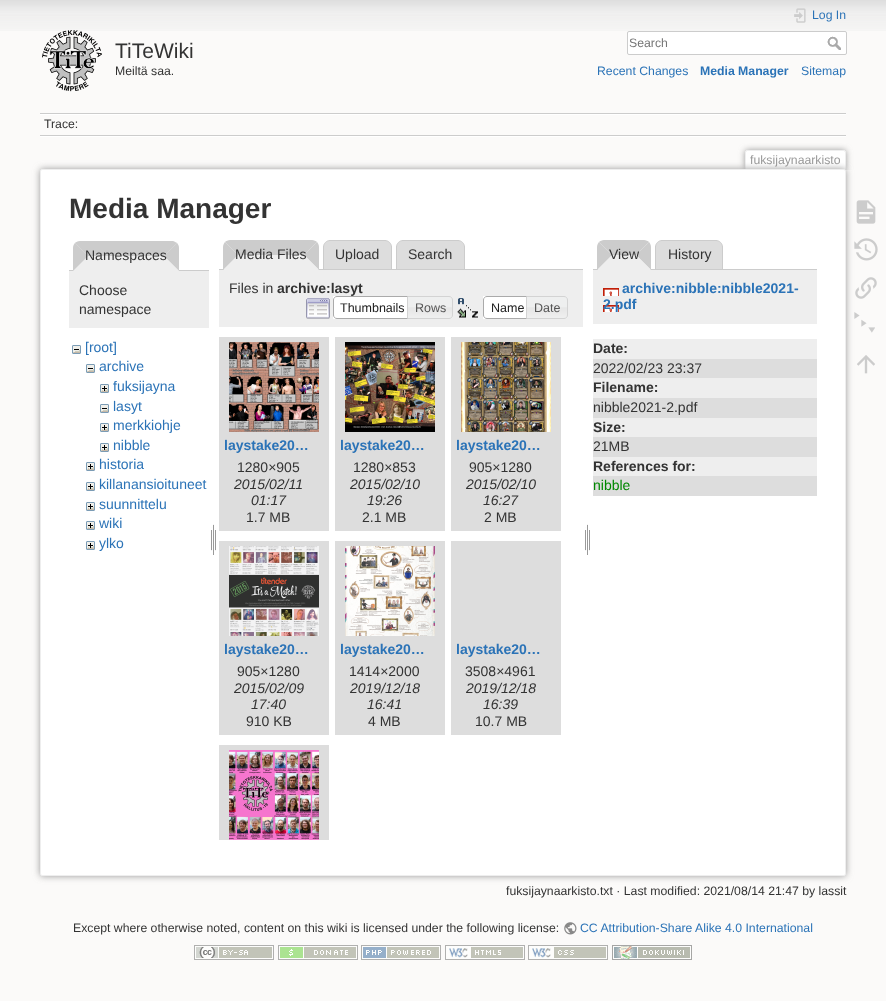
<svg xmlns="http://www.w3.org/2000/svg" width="886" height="1001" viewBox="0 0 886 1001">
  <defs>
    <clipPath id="clip1"><rect x="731" y="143" width="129" height="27"/></clipPath>
    <filter id="blur1" x="-50%" y="-200%" width="200%" height="500%"><feGaussianBlur stdDeviation="3"/></filter>
    <filter id="blur2" x="-50%" y="-200%" width="200%" height="500%"><feGaussianBlur stdDeviation="3.5"/></filter>
  </defs>
  <rect width="100%" height="100%" fill="#fbfaf9"/>
  <image x="0" y="0" width="886" height="31" href="img1.png"/>
  <image x="42" y="30" width="60" height="62" href="img2.png"/>
  <text x="115" y="58" font-family="Liberation Sans" font-size="21" fill="#333333">TiTeWiki</text>
  <text x="115" y="75" font-family="Liberation Sans" font-size="12.25" fill="#333333">Meiltä saa.</text>
  <image x="794" y="8" width="12" height="15" href="img3.png"/>
  <text x="812" y="19" font-family="Liberation Sans" font-size="12.25" fill="#2b73b7">Log In</text>
  <rect x="627.5" y="31.5" width="219" height="23" rx="1.5" fill="#ffffff" stroke="#cccccc"/>
  <text x="629" y="47" font-family="Liberation Sans" font-size="12.25" fill="#757575">Search</text>
  <image x="827" y="36" width="14" height="14" href="img4.png"/>
  <text x="597" y="75" font-family="Liberation Sans" font-size="12.25" fill="#2b73b7">Recent Changes</text>
  <text x="700" y="75" font-family="Liberation Sans" font-size="12.25" font-weight="bold" fill="#2b73b7">Media Manager</text>
  <text x="801" y="75" font-family="Liberation Sans" font-size="12.25" fill="#2b73b7">Sitemap</text>
  <rect x="40" y="113" width="806" height="1" fill="#cccccc"/>
  <rect x="40" y="136" width="806" height="1" fill="#ffffff"/>
  <rect x="40" y="114" width="806" height="1" fill="#ffffff"/>
  <rect x="40" y="135" width="806" height="1" fill="#cccccc"/>
  <text x="44" y="128" font-family="Liberation Sans" font-size="12.25" fill="#333333">Trace:</text>
  <g clip-path="url(#clip1)">
    <rect x="745" y="150" width="101" height="20" rx="2" fill="#999999" filter="url(#blur1)"/>
  </g>
  <path d="M747 151H844C844.5 151 845 151.5 845 152V170H746V152C746 151.5 746.5 151 747 151Z" fill="#ffffff"/>
  <rect x="746" y="150" width="99" height="1" fill="#eeeeee"/>
  <rect x="845" y="151" width="1" height="19" fill="#eeeeee"/>
  <rect x="745" y="151" width="1" height="19" fill="#eeeeee"/>
  <text x="750" y="164" font-family="Liberation Sans" font-size="12.25" fill="#999999">fuksijaynaarkisto</text>
  <rect x="40" y="169" width="806" height="707" rx="2" fill="#999999" filter="url(#blur2)"/>
  <rect x="40.5" y="169.5" width="805" height="706" rx="1.5" fill="#ffffff" stroke="#eeeeee"/>
  <text x="69" y="218" font-family="Liberation Sans" font-size="28" font-weight="bold" fill="#333333">Media Manager</text>
  <rect x="69" y="270" width="140" height="1" fill="#cccccc"/>
  <path d="M80 241H172C176 241 179 244 179 248V271H73V248C73 244 76 241 80 241Z" fill="#eeeeee"/>
  <path d="M80 241H173L177 243L164 256H88L75 243C76 242 78 241 80 241Z" fill="#cccccc"/>
  <path d="M177 243L164 256L179 271V248C179 246 178 244 177 243Z" fill="#cccccc"/>
  <path d="M179 271L164 256H88L73 271Z" fill="#eeeeee"/>
  <path d="M73 271V248C73 246 74 244 75 243L88 256Z" fill="#cccccc"/>
  <text x="85" y="260" font-family="Liberation Sans" font-size="14" fill="#333333">Namespaces</text>
  <rect x="69" y="271" width="140" height="57" fill="#eeeeee"/>
  <text x="79" y="295" font-family="Liberation Sans" font-size="14" fill="#333333">Choose</text>
  <text x="79" y="314" font-family="Liberation Sans" font-size="14" fill="#333333">namespace</text>
  <image x="72" y="345" width="9" height="9" href="img5.png"/>
  <text x="85" y="352" font-family="Liberation Sans" font-size="14" fill="#2b73b7">[root]</text>
  <image x="86" y="364" width="9" height="9" href="img5.png"/>
  <text x="99" y="371" font-family="Liberation Sans" font-size="14" fill="#2b73b7">archive</text>
  <image x="100" y="384" width="9" height="9" href="img6.png"/>
  <text x="113" y="391" font-family="Liberation Sans" font-size="14" fill="#2b73b7">fuksijayna</text>
  <image x="100" y="404" width="9" height="9" href="img5.png"/>
  <text x="113" y="411" font-family="Liberation Sans" font-size="14" fill="#2b73b7">lasyt</text>
  <image x="100" y="423" width="9" height="9" href="img6.png"/>
  <text x="113" y="430" font-family="Liberation Sans" font-size="14" fill="#2b73b7">merkkiohje</text>
  <image x="100" y="443" width="9" height="9" href="img6.png"/>
  <text x="113" y="450" font-family="Liberation Sans" font-size="14" fill="#2b73b7">nibble</text>
  <image x="86" y="462" width="9" height="9" href="img6.png"/>
  <text x="99" y="469" font-family="Liberation Sans" font-size="14" fill="#2b73b7">historia</text>
  <image x="86" y="482" width="9" height="9" href="img6.png"/>
  <text x="99" y="489" font-family="Liberation Sans" font-size="14" fill="#2b73b7">killanansioituneet</text>
  <image x="86" y="502" width="9" height="9" href="img6.png"/>
  <text x="99" y="509" font-family="Liberation Sans" font-size="14" fill="#2b73b7">suunnittelu</text>
  <image x="86" y="521" width="9" height="9" href="img6.png"/>
  <text x="99" y="528" font-family="Liberation Sans" font-size="14" fill="#2b73b7">wiki</text>
  <image x="86" y="541" width="9" height="9" href="img6.png"/>
  <text x="99" y="548" font-family="Liberation Sans" font-size="14" fill="#2b73b7">ylko</text>
  <image x="211" y="524" width="5" height="31" href="img7.png"/>
  <path d="M230 240H312C314 240 316 241 317 242L304 255H238L225 242C226 241 228 240 230 240Z" fill="#cccccc"/>
  <path d="M330 240.5H385C388.5 240.5 391.5 243.5 391.5 247V269.5H323.5V247C323.5 243.5 326.5 240.5 330 240.5Z" fill="#dddddd" stroke="#cccccc"/>
  <path d="M403 240.5H458C461.5 240.5 464.5 243.5 464.5 247V269.5H396.5V247C396.5 243.5 399.5 240.5 403 240.5Z" fill="#dddddd" stroke="#cccccc"/>
  <rect x="219" y="269" width="364" height="1" fill="#cccccc"/>
  <path d="M317 242L304 255L319 270V247C319 245 318 243 317 242Z" fill="#cccccc"/>
  <path d="M319 270L304 255H238L223 270Z" fill="#eeeeee"/>
  <path d="M223 270V247C223 245 224 243 225 242L238 255Z" fill="#cccccc"/>
  <text x="235" y="259" font-family="Liberation Sans" font-size="14" fill="#333333">Media Files</text>
  <text x="335" y="259" font-family="Liberation Sans" font-size="14" fill="#333333">Upload</text>
  <text x="408" y="259" font-family="Liberation Sans" font-size="14" fill="#333333">Search</text>
  <rect x="219" y="270" width="364" height="57" fill="#eeeeee"/>
  <text x="229" y="293" font-family="Liberation Sans" font-size="14" fill="#333333">Files in</text>
  <text x="277" y="293" font-family="Liberation Sans" font-size="14" font-weight="bold" fill="#333333">archive:lasyt</text>
  <image x="306" y="298" width="24" height="21" href="img8.png"/>
  <rect x="333" y="296" width="74" height="23" fill="#ffffff"/>
  <path d="M337 296.5H411.5V318.5H337C335 318.5 333.5 317 333.5 315V300C333.5 298 335 296.5 337 296.5Z" fill="none" stroke="#aaaaaa"/>
  <text x="340" y="312" font-family="Liberation Sans" font-size="12.5" fill="#212121">Thumbnails</text>
  <image x="408" y="296" width="45" height="23" href="img9.png"/>
  <path d="M407.5 296.5H449C451 296.5 452.5 298 452.5 300V315C452.5 317 451 318.5 449 318.5H407.5Z" fill="none" stroke="#d3d3d3"/>
  <text x="415" y="312" font-family="Liberation Sans" font-size="12.5" fill="#555555">Rows</text>
  <image x="457" y="298" width="21" height="20" href="img10.png"/>
  <rect x="483" y="296" width="43" height="23" fill="#ffffff"/>
  <path d="M487 296.5H530.5V318.5H487C485 318.5 483.5 317 483.5 315V300C483.5 298 485 296.5 487 296.5Z" fill="none" stroke="#aaaaaa"/>
  <text x="491" y="312" font-family="Liberation Sans" font-size="12.5" fill="#212121">Name</text>
  <image x="527" y="296" width="41" height="23" href="img11.png"/>
  <path d="M526.5 296.5H564C566 296.5 567.5 298 567.5 300V315C567.5 317 566 318.5 564 318.5H526.5Z" fill="none" stroke="#d3d3d3"/>
  <text x="534" y="312" font-family="Liberation Sans" font-size="12.5" fill="#555555">Date</text>
  <rect x="219" y="337" width="110" height="194" fill="#dddddd"/>
  <image x="229" y="342" width="90" height="90" href="img12.png"/>
  <text x="224" y="450" font-family="Liberation Sans" font-size="14" font-weight="bold" fill="#2b73b7">laystake20…</text>
  <text x="237" y="472" font-family="Liberation Sans" font-size="14" fill="#333333">1280×905</text>
  <text x="234" y="489" font-family="Liberation Sans" font-size="14" font-style="italic" fill="#333333">2015/02/11</text>
  <text x="251" y="505" font-family="Liberation Sans" font-size="14" font-style="italic" fill="#333333">01:17</text>
  <text x="246" y="522" font-family="Liberation Sans" font-size="14" fill="#333333">1.7 MB</text>
  <rect x="335" y="337" width="110" height="194" fill="#dddddd"/>
  <image x="345" y="342" width="90" height="90" href="img13.png"/>
  <text x="340" y="450" font-family="Liberation Sans" font-size="14" font-weight="bold" fill="#2b73b7">laystake20…</text>
  <text x="353" y="472" font-family="Liberation Sans" font-size="14" fill="#333333">1280×853</text>
  <text x="350" y="489" font-family="Liberation Sans" font-size="14" font-style="italic" fill="#333333">2015/02/10</text>
  <text x="367" y="505" font-family="Liberation Sans" font-size="14" font-style="italic" fill="#333333">19:26</text>
  <text x="362" y="522" font-family="Liberation Sans" font-size="14" fill="#333333">2.1 MB</text>
  <rect x="451" y="337" width="110" height="194" fill="#dddddd"/>
  <image x="461" y="342" width="90" height="90" href="img14.png"/>
  <text x="456" y="450" font-family="Liberation Sans" font-size="14" font-weight="bold" fill="#2b73b7">laystake20…</text>
  <text x="469" y="472" font-family="Liberation Sans" font-size="14" fill="#333333">905×1280</text>
  <text x="466" y="489" font-family="Liberation Sans" font-size="14" font-style="italic" fill="#333333">2015/02/10</text>
  <text x="483" y="505" font-family="Liberation Sans" font-size="14" font-style="italic" fill="#333333">16:27</text>
  <text x="484" y="522" font-family="Liberation Sans" font-size="14" fill="#333333">2 MB</text>
  <rect x="219" y="541" width="110" height="194" fill="#dddddd"/>
  <image x="229" y="546" width="90" height="90" href="img15.png"/>
  <text x="224" y="654" font-family="Liberation Sans" font-size="14" font-weight="bold" fill="#2b73b7">laystake20…</text>
  <text x="237" y="676" font-family="Liberation Sans" font-size="14" fill="#333333">905×1280</text>
  <text x="234" y="693" font-family="Liberation Sans" font-size="14" font-style="italic" fill="#333333">2015/02/09</text>
  <text x="251" y="709" font-family="Liberation Sans" font-size="14" font-style="italic" fill="#333333">17:40</text>
  <text x="246" y="726" font-family="Liberation Sans" font-size="14" fill="#333333">910 KB</text>
  <rect x="335" y="541" width="110" height="194" fill="#dddddd"/>
  <image x="345" y="546" width="90" height="90" href="img16.png"/>
  <text x="340" y="654" font-family="Liberation Sans" font-size="14" font-weight="bold" fill="#2b73b7">laystake20…</text>
  <text x="349" y="676" font-family="Liberation Sans" font-size="14" fill="#333333">1414×2000</text>
  <text x="350" y="693" font-family="Liberation Sans" font-size="14" font-style="italic" fill="#333333">2019/12/18</text>
  <text x="367" y="709" font-family="Liberation Sans" font-size="14" font-style="italic" fill="#333333">16:41</text>
  <text x="368" y="726" font-family="Liberation Sans" font-size="14" fill="#333333">4 MB</text>
  <rect x="451" y="541" width="110" height="194" fill="#dddddd"/>
  <text x="456" y="654" font-family="Liberation Sans" font-size="14" font-weight="bold" fill="#2b73b7">laystake20…</text>
  <text x="465" y="676" font-family="Liberation Sans" font-size="14" fill="#333333">3508×4961</text>
  <text x="466" y="693" font-family="Liberation Sans" font-size="14" font-style="italic" fill="#333333">2019/12/18</text>
  <text x="483" y="709" font-family="Liberation Sans" font-size="14" font-style="italic" fill="#333333">16:39</text>
  <text x="475" y="726" font-family="Liberation Sans" font-size="14" fill="#333333">10.7 MB</text>
  <rect x="219" y="745" width="110" height="95" fill="#dddddd"/>
  <image x="229" y="750" width="90" height="90" href="img17.png"/>
  <image x="585" y="524" width="5" height="31" href="img7.png"/>
  <path d="M604 240H644C646 240 648 241 649 242L636 255H612L599 242C600 241 602 240 604 240Z" fill="#cccccc"/>
  <path d="M662 240.5H716C719.5 240.5 722.5 243.5 722.5 247V269.5H655.5V247C655.5 243.5 658.5 240.5 662 240.5Z" fill="#dddddd" stroke="#cccccc"/>
  <rect x="593" y="269" width="224" height="1" fill="#cccccc"/>
  <path d="M649 242L636 255L651 270V247C651 245 650 243 649 242Z" fill="#cccccc"/>
  <path d="M651 270L636 255H612L597 270Z" fill="#eeeeee"/>
  <path d="M597 270V247C597 245 598 243 599 242L612 255Z" fill="#cccccc"/>
  <text x="609" y="259" font-family="Liberation Sans" font-size="14" fill="#333333">View</text>
  <text x="668" y="259" font-family="Liberation Sans" font-size="14" fill="#333333">History</text>
  <rect x="593" y="270" width="224" height="54" fill="#eeeeee"/>
  <image x="603" y="288" width="16" height="24" href="img18.png"/>
  <text x="622" y="293" font-family="Liberation Sans" font-size="14" font-weight="bold" fill="#2b73b7">archive:nibble:nibble2021-</text>
  <text x="603" y="309" font-family="Liberation Sans" font-size="14" font-weight="bold" fill="#2b73b7">2.pdf</text>
  <rect x="593" y="339" width="224" height="20" fill="#eeeeee"/>
  <text x="593" y="353" font-family="Liberation Sans" font-size="14" font-weight="bold" fill="#333333">Date:</text>
  <rect x="593" y="359" width="224" height="19" fill="#dddddd"/>
  <text x="593" y="373" font-family="Liberation Sans" font-size="14" fill="#333333">2022/02/23 23:37</text>
  <rect x="593" y="378" width="224" height="20" fill="#eeeeee"/>
  <text x="593" y="392" font-family="Liberation Sans" font-size="14" font-weight="bold" fill="#333333">Filename:</text>
  <rect x="593" y="398" width="224" height="20" fill="#dddddd"/>
  <text x="593" y="412" font-family="Liberation Sans" font-size="14" fill="#333333">nibble2021-2.pdf</text>
  <rect x="593" y="418" width="224" height="19" fill="#eeeeee"/>
  <text x="593" y="432" font-family="Liberation Sans" font-size="14" font-weight="bold" fill="#333333">Size:</text>
  <rect x="593" y="437" width="224" height="20" fill="#dddddd"/>
  <text x="593" y="451" font-family="Liberation Sans" font-size="14" fill="#333333">21MB</text>
  <rect x="593" y="457" width="224" height="19" fill="#eeeeee"/>
  <text x="593" y="471" font-family="Liberation Sans" font-size="14" font-weight="bold" fill="#333333">References for:</text>
  <rect x="593" y="476" width="224" height="20" fill="#dddddd"/>
  <text x="593" y="490" font-family="Liberation Sans" font-size="14" fill="#008800">nibble</text>
  <text x="506" y="895" font-family="Liberation Sans" font-size="12.25" fill="#333333">fuksijaynaarkisto.txt · Last modified: 2021/08/14 21:47 by lassit</text>
  <image x="856" y="200" width="20" height="24" href="img19.png"/>
  <image x="854" y="238" width="24" height="23" href="img20.png"/>
  <image x="855" y="277" width="22" height="22" href="img21.png"/>
  <image x="854" y="312" width="21" height="21" href="img22.png"/>
  <image x="857" y="355" width="18" height="19" href="img23.png"/>
  <text x="73" y="932" font-family="Liberation Sans" font-size="12.25" fill="#333333">Except where otherwise noted, content on this wiki is licensed under the following license:</text>
  <image x="564" y="922" width="13" height="13" href="img24.png"/>
  <text x="580" y="932" font-family="Liberation Sans" font-size="12.25" fill="#2b73b7">CC Attribution-Share Alike 4.0 International</text>
  <image x="194" y="945" width="80" height="15" href="img25.png"/>
  <image x="278" y="945" width="80" height="15" href="img26.png"/>
  <image x="361" y="945" width="80" height="15" href="img27.png"/>
  <image x="445" y="945" width="80" height="15" href="img28.png"/>
  <image x="528" y="945" width="80" height="15" href="img29.png"/>
  <image x="612" y="945" width="80" height="15" href="img30.png"/>
</svg>
